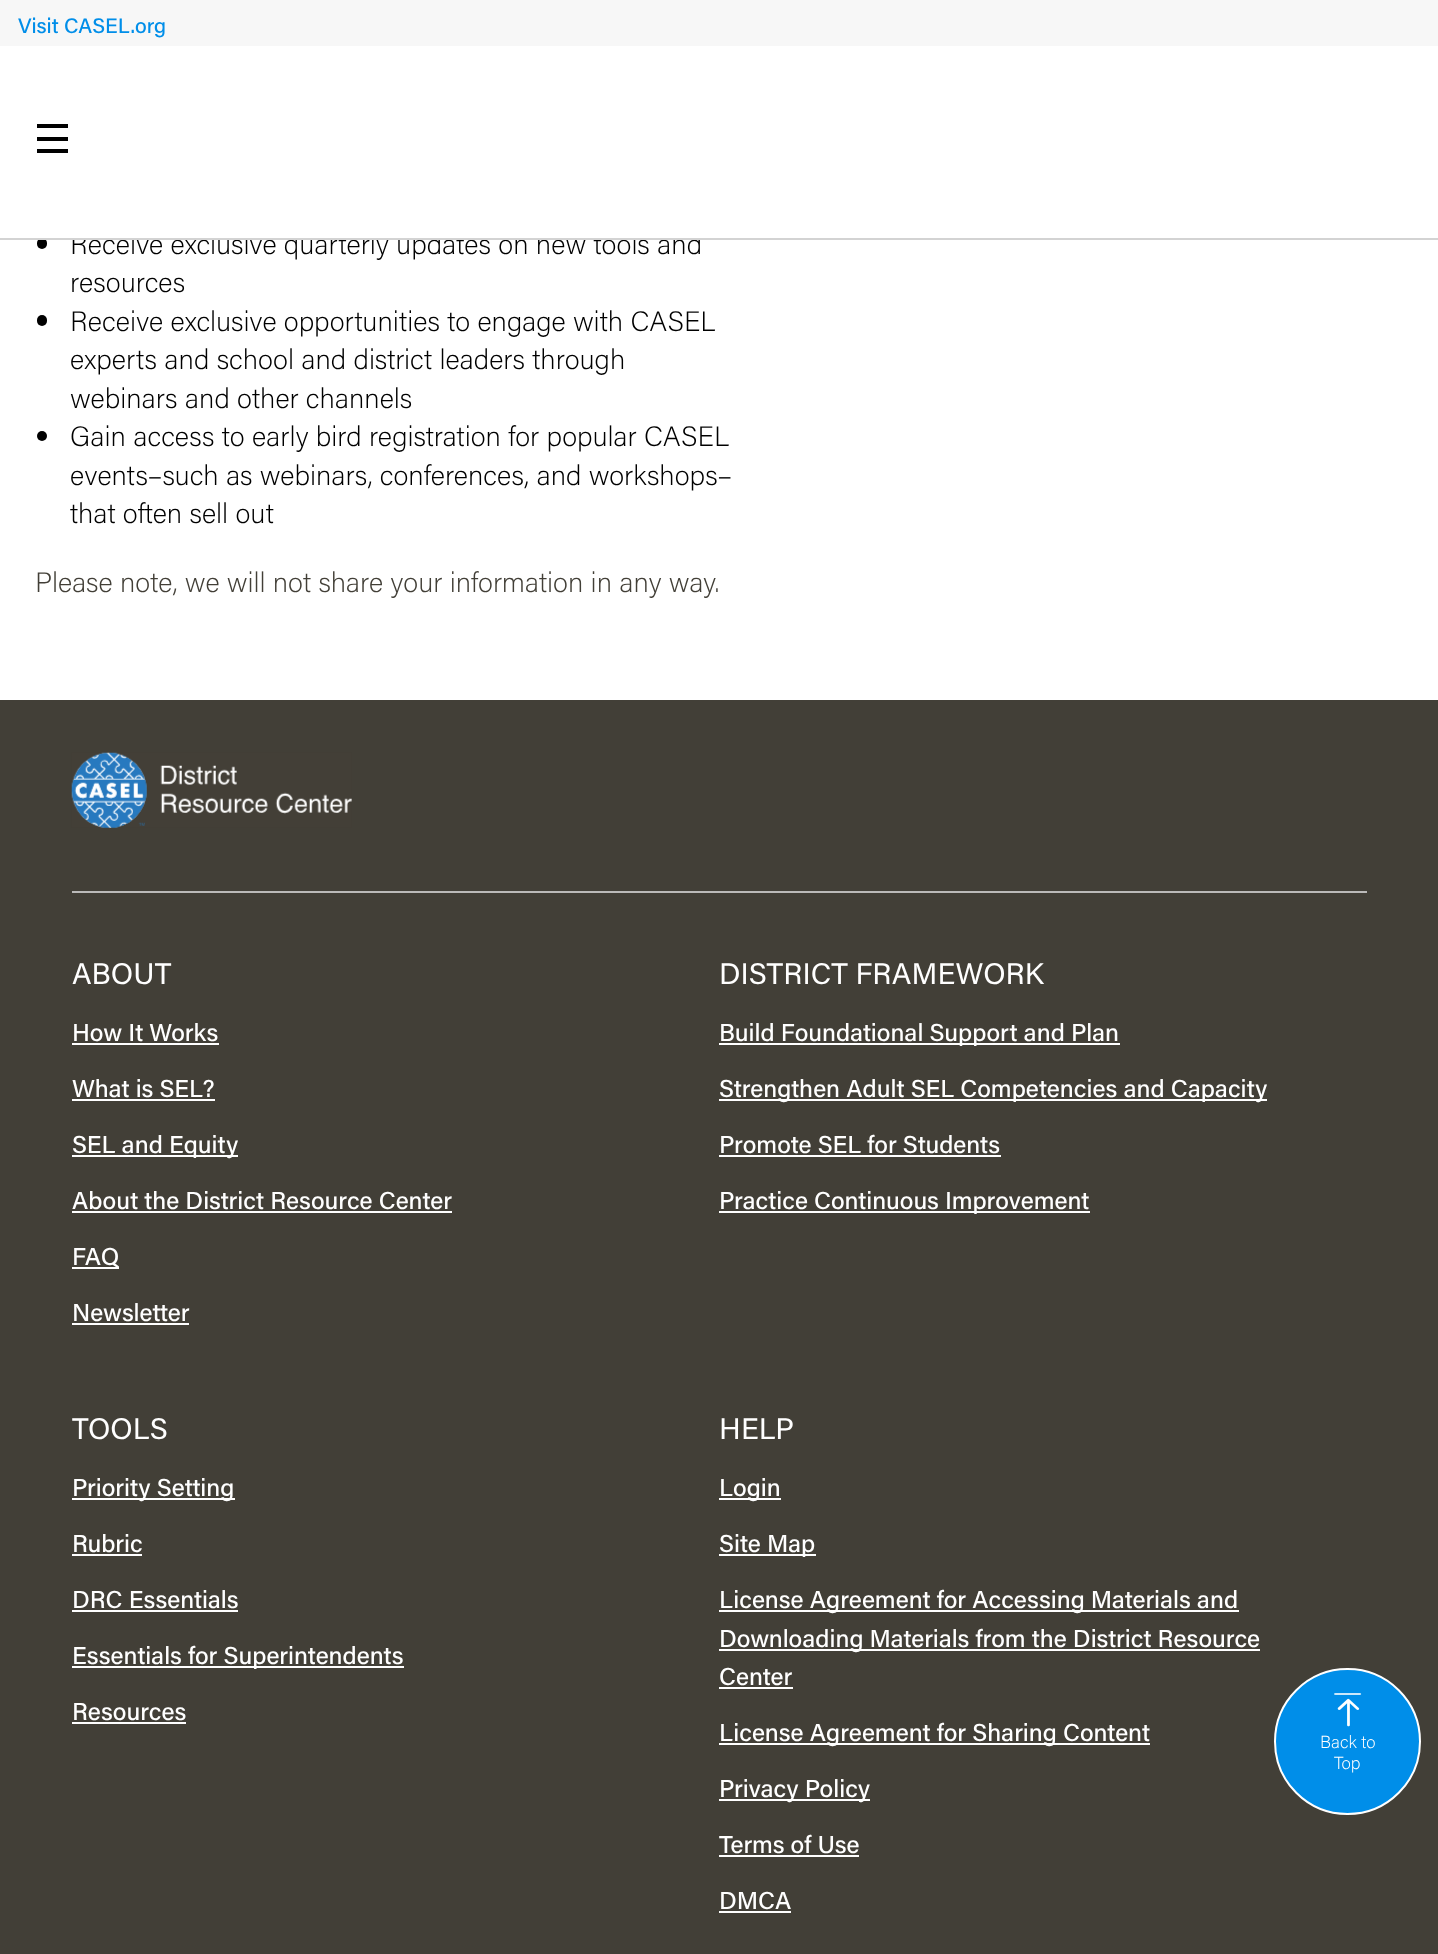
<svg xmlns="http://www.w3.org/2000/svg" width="1438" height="1954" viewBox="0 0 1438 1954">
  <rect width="100%" height="100%" fill="#ffffff"/>
  <text x="70" y="254" font-family="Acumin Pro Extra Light" font-size="28" font-weight="200" fill="#000000">Receive exclusive quarterly updates on new tools and</text>
  <rect x="72" y="233" width="628" height="5" fill="#ffffff"/>
  <rect x="37" y="238" width="10" height="11" rx="5" fill="#000000"/>
  <rect x="0" y="238" width="1438" height="2" fill="#d3d3d3"/>
  <rect x="0" y="0" width="1438" height="46" fill="#f7f7f7"/>
  <text x="18" y="33" font-family="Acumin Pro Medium" font-size="21" font-weight="500" fill="#008ee9">Visit CASEL.org</text>
  <rect x="37" y="124" width="31" height="4" fill="#000000"/>
  <rect x="37" y="137" width="31" height="4" fill="#000000"/>
  <rect x="37" y="149" width="31" height="4" fill="#000000"/>
  <text x="70" y="292" font-family="Acumin Pro Extra Light" font-size="28" font-weight="200" fill="#000000">resources</text>
  <rect x="37" y="315" width="10" height="11" rx="5" fill="#000000"/>
  <text x="70" y="331" font-family="Acumin Pro Extra Light" font-size="28" font-weight="200" fill="#000000">Receive exclusive opportunities to engage with CASEL</text>
  <text x="70" y="369" font-family="Acumin Pro Extra Light" font-size="28" font-weight="200" fill="#000000">experts and school and district leaders through</text>
  <text x="70" y="408" font-family="Acumin Pro Extra Light" font-size="28" font-weight="200" fill="#000000">webinars and other channels</text>
  <circle cx="42" cy="436" r="5" fill="#000000"/>
  <text x="70" y="446" font-family="Acumin Pro Extra Light" font-size="28" font-weight="200" fill="#000000">Gain access to early bird registration for popular CASEL</text>
  <text x="70" y="485" font-family="Acumin Pro Extra Light" font-size="28" font-weight="200" fill="#000000">events–such as webinars, conferences, and workshops–</text>
  <text x="70" y="523" font-family="Acumin Pro Extra Light" font-size="28" font-weight="200" fill="#000000">that often sell out</text>
  <text x="35" y="592" font-family="Acumin Pro Extra Light" font-size="28" font-weight="200" fill="#423f37">Please note, we will not share your information in any way.</text>
  <rect x="0" y="700" width="1438" height="1254" fill="#423f37"/>
  <circle cx="1347.5" cy="1741.5" r="72.5" fill="#008ee9" stroke="#ffffff" stroke-width="2"/>
  <image x="1334" y="1693" width="28" height="34" href="img1.png"/>
  <text x="1320" y="1748" font-family="Acumin Pro Extra Light" font-size="17.5" font-weight="200" fill="#ffffff">Back to</text>
  <text x="1334" y="1769" font-family="Acumin Pro Extra Light" font-size="17.5" font-weight="200" fill="#ffffff">Top</text>
  <rect x="72" y="891" width="1295" height="2" fill="#bbbab9"/>
  <image x="71" y="752" width="281" height="76" href="img2.png"/>
  <text x="72" y="984" font-family="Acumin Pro" font-size="29.75" fill="#ffffff">ABOUT</text>
  <text x="72" y="1041" font-family="Acumin Pro Medium" font-size="24.5" font-weight="500" fill="#ffffff">How It Works</text>
  <rect x="72" y="1043" width="147" height="2" fill="#ffffff"/>
  <text x="72" y="1097" font-family="Acumin Pro Medium" font-size="24.5" font-weight="500" fill="#ffffff">What is SEL?</text>
  <rect x="72" y="1099" width="143" height="2" fill="#ffffff"/>
  <rect x="72" y="1155" width="166" height="2" fill="#ffffff"/>
  <text x="72" y="1153" font-family="Acumin Pro Medium" font-size="24.5" font-weight="500" fill="#ffffff">SEL and Equity</text>
  <text x="72" y="1209" font-family="Acumin Pro Medium" font-size="24.5" font-weight="500" fill="#ffffff">About the District Resource Center</text>
  <rect x="72" y="1211" width="380" height="2" fill="#ffffff"/>
  <rect x="72" y="1267" width="47" height="2" fill="#ffffff"/>
  <text x="72" y="1265" font-family="Acumin Pro Medium" font-size="24.5" font-weight="500" fill="#ffffff">FAQ</text>
  <text x="72" y="1321" font-family="Acumin Pro Medium" font-size="24.5" font-weight="500" fill="#ffffff">Newsletter</text>
  <rect x="72" y="1323" width="117" height="2" fill="#ffffff"/>
  <text x="719" y="984" font-family="Acumin Pro" font-size="29.75" fill="#ffffff">DISTRICT FRAMEWORK</text>
  <rect x="719" y="1043" width="401" height="2" fill="#ffffff"/>
  <text x="719" y="1041" font-family="Acumin Pro Medium" font-size="24.5" font-weight="500" fill="#ffffff">Build Foundational Support and Plan</text>
  <rect x="719" y="1099" width="548" height="2" fill="#ffffff"/>
  <text x="719" y="1097" font-family="Acumin Pro Medium" font-size="24.5" font-weight="500" fill="#ffffff">Strengthen Adult SEL Competencies and Capacity</text>
  <text x="719" y="1153" font-family="Acumin Pro Medium" font-size="24.5" font-weight="500" fill="#ffffff">Promote SEL for Students</text>
  <rect x="719" y="1155" width="282" height="2" fill="#ffffff"/>
  <rect x="719" y="1211" width="371" height="2" fill="#ffffff"/>
  <text x="719" y="1209" font-family="Acumin Pro Medium" font-size="24.5" font-weight="500" fill="#ffffff">Practice Continuous Improvement</text>
  <text x="72" y="1439" font-family="Acumin Pro" font-size="29.75" fill="#ffffff">TOOLS</text>
  <rect x="72" y="1498" width="163" height="2" fill="#ffffff"/>
  <text x="72" y="1496" font-family="Acumin Pro Medium" font-size="24.5" font-weight="500" fill="#ffffff">Priority Setting</text>
  <text x="72" y="1552" font-family="Acumin Pro Medium" font-size="24.5" font-weight="500" fill="#ffffff">Rubric</text>
  <rect x="72" y="1554" width="70" height="2" fill="#ffffff"/>
  <text x="72" y="1608" font-family="Acumin Pro Medium" font-size="24.5" font-weight="500" fill="#ffffff">DRC Essentials</text>
  <rect x="72" y="1610" width="166" height="2" fill="#ffffff"/>
  <rect x="72" y="1666" width="332" height="2" fill="#ffffff"/>
  <text x="72" y="1664" font-family="Acumin Pro Medium" font-size="24.5" font-weight="500" fill="#ffffff">Essentials for Superintendents</text>
  <text x="72" y="1720" font-family="Acumin Pro Medium" font-size="24.5" font-weight="500" fill="#ffffff">Resources</text>
  <rect x="72" y="1722" width="114" height="2" fill="#ffffff"/>
  <text x="719" y="1439" font-family="Acumin Pro" font-size="29.75" fill="#ffffff">HELP</text>
  <rect x="719" y="1498" width="62" height="2" fill="#ffffff"/>
  <text x="719" y="1496" font-family="Acumin Pro Medium" font-size="24.5" font-weight="500" fill="#ffffff">Login</text>
  <rect x="719" y="1554" width="97" height="2" fill="#ffffff"/>
  <text x="719" y="1552" font-family="Acumin Pro Medium" font-size="24.5" font-weight="500" fill="#ffffff">Site Map</text>
  <rect x="719" y="1610" width="520" height="2" fill="#ffffff"/>
  <text x="719" y="1608" font-family="Acumin Pro Medium" font-size="24.5" font-weight="500" fill="#ffffff">License Agreement for Accessing Materials and</text>
  <rect x="719" y="1649" width="541" height="2" fill="#ffffff"/>
  <text x="719" y="1647" font-family="Acumin Pro Medium" font-size="24.5" font-weight="500" fill="#ffffff">Downloading Materials from the District Resource</text>
  <text x="719" y="1685" font-family="Acumin Pro Medium" font-size="24.5" font-weight="500" fill="#ffffff">Center</text>
  <rect x="719" y="1687" width="74" height="2" fill="#ffffff"/>
  <rect x="719" y="1743" width="431" height="2" fill="#ffffff"/>
  <text x="719" y="1741" font-family="Acumin Pro Medium" font-size="24.5" font-weight="500" fill="#ffffff">License Agreement for Sharing Content</text>
  <rect x="719" y="1799" width="151" height="2" fill="#ffffff"/>
  <text x="719" y="1797" font-family="Acumin Pro Medium" font-size="24.5" font-weight="500" fill="#ffffff">Privacy Policy</text>
  <text x="719" y="1853" font-family="Acumin Pro Medium" font-size="24.5" font-weight="500" fill="#ffffff">Terms of Use</text>
  <rect x="719" y="1855" width="140" height="2" fill="#ffffff"/>
  <text x="719" y="1909" font-family="Acumin Pro Medium" font-size="24.5" font-weight="500" fill="#ffffff">DMCA</text>
  <rect x="719" y="1911" width="72" height="2" fill="#ffffff"/>
</svg>
